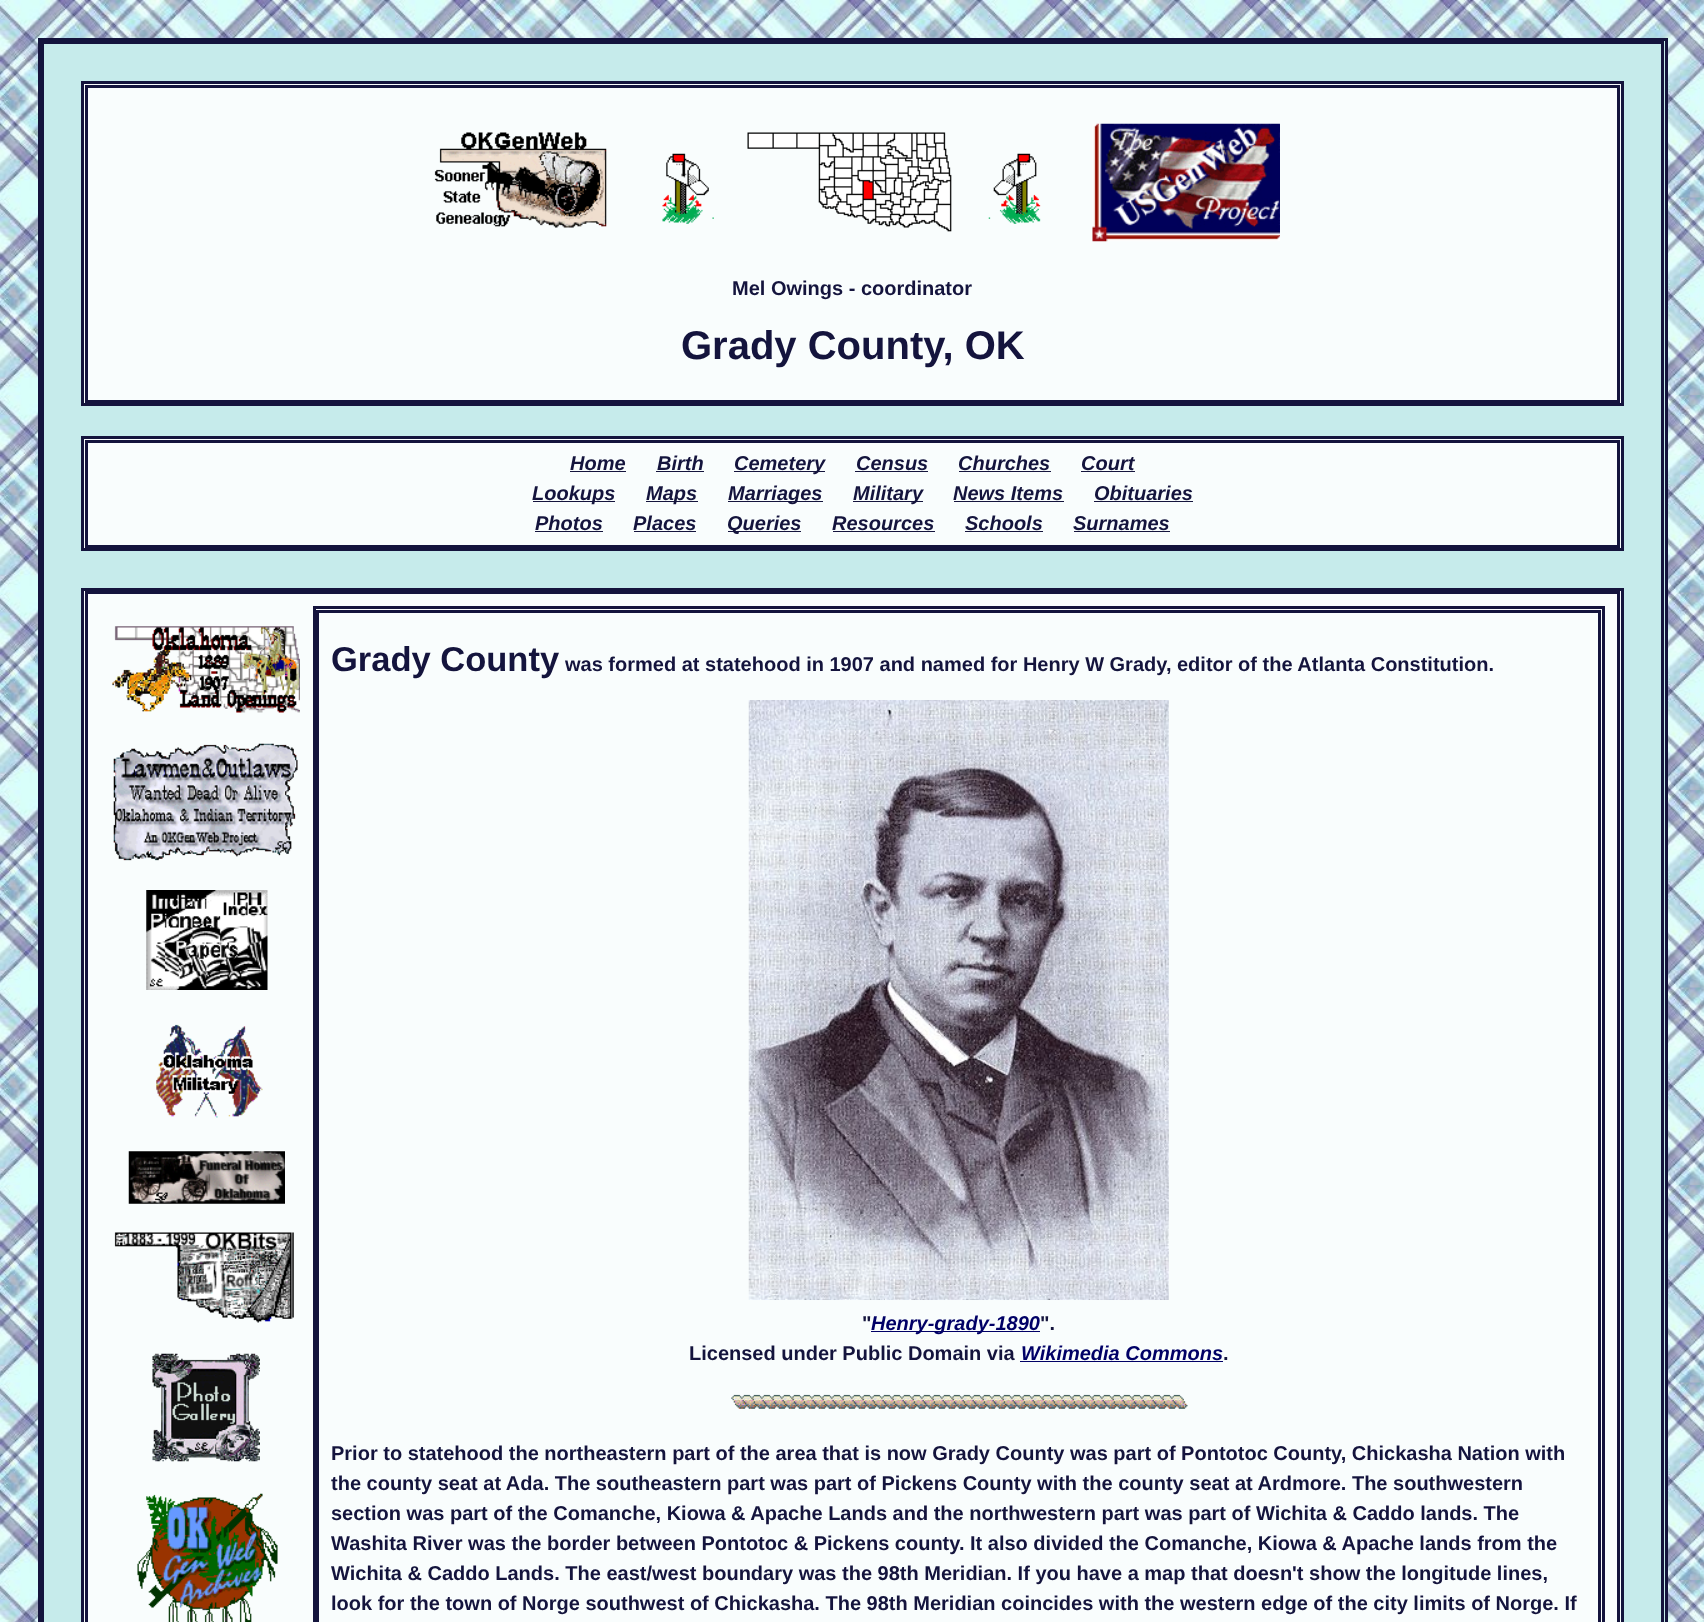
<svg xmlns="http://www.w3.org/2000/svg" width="1704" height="1622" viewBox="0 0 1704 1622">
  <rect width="100%" height="100%" fill="#ffffff"/>
  <image x="0" y="0" width="1704" height="1622" href="img1.png"/>
  <rect x="44" y="41" width="1621" height="1581" fill="#c6ebeb"/>
  <rect x="39.5" y="39.5" width="1627" height="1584" fill="none" stroke="#14143d" stroke-width="3"/>
  <rect x="42.5" y="42.5" width="1620" height="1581" fill="none" stroke="#14143d" stroke-width="3"/>
  <rect x="82.5" y="82.5" width="1540" height="322" fill="#f9fdfd" stroke="#14143d" stroke-width="3"/>
  <rect x="86.5" y="86.5" width="1532" height="315" fill="none" stroke="#14143d" stroke-width="3"/>
  <image x="434" y="132" width="173" height="96" href="img2.png"/>
  <image x="662" y="153" width="52" height="71" href="img3.png"/>
  <image x="747" y="132" width="205" height="100" href="img4.png"/>
  <image x="988" y="153" width="53" height="71" href="img5.png"/>
  <image x="1092" y="123" width="188" height="119" href="img6.png"/>
  <text x="732" y="295" font-family="Liberation Sans" font-size="20" font-weight="bold" fill="#14143d">Mel Owings - coordinator</text>
  <text x="681" y="359" font-family="Liberation Sans" font-size="40" font-weight="bold" fill="#14143d">Grady County, OK</text>
  <rect x="82.5" y="437.5" width="1540" height="112" fill="#f9fdfd" stroke="#14143d" stroke-width="3"/>
  <rect x="86.5" y="441.5" width="1532" height="105" fill="none" stroke="#14143d" stroke-width="3"/>
  <text x="570" y="470" font-family="Liberation Sans" font-size="20" font-weight="bold" font-style="italic" fill="#14143d">Home</text>
  <rect x="570" y="471" width="56" height="1" fill="#14143d"/>
  <text x="657" y="470" font-family="Liberation Sans" font-size="20" font-weight="bold" font-style="italic" fill="#14143d">Birth</text>
  <rect x="656" y="471" width="48" height="1" fill="#14143d"/>
  <rect x="734" y="471" width="91" height="1" fill="#14143d"/>
  <text x="734" y="470" font-family="Liberation Sans" font-size="20" font-weight="bold" font-style="italic" fill="#14143d">Cemetery</text>
  <text x="856" y="470" font-family="Liberation Sans" font-size="20" font-weight="bold" font-style="italic" fill="#14143d">Census</text>
  <rect x="855" y="471" width="73" height="1" fill="#14143d"/>
  <text x="958" y="470" font-family="Liberation Sans" font-size="20" font-weight="bold" font-style="italic" fill="#14143d">Churches</text>
  <rect x="959" y="471" width="92" height="1" fill="#14143d"/>
  <text x="1081" y="470" font-family="Liberation Sans" font-size="20" font-weight="bold" font-style="italic" fill="#14143d">Court</text>
  <rect x="1081" y="471" width="54" height="1" fill="#14143d"/>
  <rect x="533" y="501" width="82" height="1" fill="#14143d"/>
  <text x="532" y="500" font-family="Liberation Sans" font-size="20" font-weight="bold" font-style="italic" fill="#14143d">Lookups</text>
  <rect x="646" y="501" width="52" height="1" fill="#14143d"/>
  <text x="646" y="500" font-family="Liberation Sans" font-size="20" font-weight="bold" font-style="italic" fill="#14143d">Maps</text>
  <rect x="728" y="501" width="95" height="1" fill="#14143d"/>
  <text x="728" y="500" font-family="Liberation Sans" font-size="20" font-weight="bold" font-style="italic" fill="#14143d">Marriages</text>
  <rect x="853" y="501" width="70" height="1" fill="#14143d"/>
  <text x="853" y="500" font-family="Liberation Sans" font-size="20" font-weight="bold" font-style="italic" fill="#14143d">Military</text>
  <text x="953" y="500" font-family="Liberation Sans" font-size="20" font-weight="bold" font-style="italic" fill="#14143d">News Items</text>
  <rect x="954" y="501" width="110" height="1" fill="#14143d"/>
  <text x="1094" y="500" font-family="Liberation Sans" font-size="20" font-weight="bold" font-style="italic" fill="#14143d">Obituaries</text>
  <rect x="1094" y="501" width="99" height="1" fill="#14143d"/>
  <text x="535" y="530" font-family="Liberation Sans" font-size="20" font-weight="bold" font-style="italic" fill="#14143d">Photos</text>
  <rect x="535" y="531" width="68" height="1" fill="#14143d"/>
  <text x="633" y="530" font-family="Liberation Sans" font-size="20" font-weight="bold" font-style="italic" fill="#14143d">Places</text>
  <rect x="634" y="531" width="62" height="1" fill="#14143d"/>
  <rect x="728" y="531" width="73" height="1" fill="#14143d"/>
  <text x="727" y="530" font-family="Liberation Sans" font-size="20" font-weight="bold" font-style="italic" fill="#14143d">Queries</text>
  <text x="832" y="530" font-family="Liberation Sans" font-size="20" font-weight="bold" font-style="italic" fill="#14143d">Resources</text>
  <rect x="833" y="531" width="102" height="1" fill="#14143d"/>
  <text x="965" y="530" font-family="Liberation Sans" font-size="20" font-weight="bold" font-style="italic" fill="#14143d">Schools</text>
  <rect x="965" y="531" width="78" height="1" fill="#14143d"/>
  <text x="1073" y="530" font-family="Liberation Sans" font-size="20" font-weight="bold" font-style="italic" fill="#14143d">Surnames</text>
  <rect x="1074" y="531" width="96" height="1" fill="#14143d"/>
  <rect x="82.5" y="589.5" width="1540" height="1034" fill="#f9fdfd" stroke="#14143d" stroke-width="3"/>
  <rect x="86.5" y="592.5" width="1532" height="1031" fill="none" stroke="#14143d" stroke-width="3"/>
  <image x="112" y="626" width="188" height="87" href="img7.png"/>
  <image x="113" y="743" width="185" height="118" href="img8.png"/>
  <image x="146" y="890" width="122" height="100" href="img9.png"/>
  <image x="156" y="1024" width="107" height="94" href="img10.png"/>
  <image x="128" y="1151" width="157" height="53" href="img11.png"/>
  <image x="114" y="1232" width="180" height="91" href="img12.png"/>
  <image x="152" y="1353" width="108" height="109" href="img13.png"/>
  <image x="137" y="1493" width="141" height="129" href="img14.png"/>
  <rect x="314.5" y="607.5" width="1289" height="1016" fill="none" stroke="#14143d" stroke-width="3"/>
  <rect x="317.5" y="611.5" width="1282" height="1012" fill="none" stroke="#14143d" stroke-width="3"/>
  <text x="331" y="671" font-family="Liberation Sans" font-size="34.5" font-weight="bold" fill="#14143d">Grady County</text>
  <text x="565" y="671" font-family="Liberation Sans" font-size="20" font-weight="bold" fill="#14143d">was formed at statehood in 1907 and named for Henry W Grady, editor of the Atlanta Constitution.</text>
  <image x="748" y="700" width="421" height="600" href="img15.png"/>
  <text x="862" y="1330" font-family="Liberation Sans" font-size="20" font-weight="bold" fill="#14143d">"</text>
  <rect x="871" y="1331" width="169" height="1" fill="#000066"/>
  <text x="871" y="1330" font-family="Liberation Sans" font-size="20" font-weight="bold" font-style="italic" fill="#000066">Henry-grady-1890</text>
  <text x="1040" y="1330" font-family="Liberation Sans" font-size="20" font-weight="bold" fill="#14143d">".</text>
  <text x="689" y="1360" font-family="Liberation Sans" font-size="20" font-weight="bold" fill="#14143d">Licensed under Public Domain via</text>
  <text x="1021" y="1360" font-family="Liberation Sans" font-size="20" font-weight="bold" font-style="italic" fill="#000066">Wikimedia Commons</text>
  <rect x="1020" y="1361" width="203" height="1" fill="#000066"/>
  <text x="1223" y="1360" font-family="Liberation Sans" font-size="20" font-weight="bold" fill="#14143d">.</text>
  <image x="731" y="1394" width="457" height="15" href="img16.png"/>
  <text x="331" y="1460" font-family="Liberation Sans" font-size="20" font-weight="bold" fill="#14143d">Prior to statehood the northeastern part of the area that is now Grady County was part of Pontotoc County, Chickasha Nation with</text>
  <text x="331" y="1490" font-family="Liberation Sans" font-size="20" font-weight="bold" fill="#14143d">the county seat at Ada. The southeastern part was part of Pickens County with the county seat at Ardmore. The southwestern</text>
  <text x="331" y="1520" font-family="Liberation Sans" font-size="20" font-weight="bold" fill="#14143d">section was part of the Comanche, Kiowa &amp; Apache Lands and the northwestern part was part of Wichita &amp; Caddo lands. The</text>
  <text x="331" y="1550" font-family="Liberation Sans" font-size="20" font-weight="bold" fill="#14143d">Washita River was the border between Pontotoc &amp; Pickens county. It also divided the Comanche, Kiowa &amp; Apache lands from the</text>
  <text x="331" y="1580" font-family="Liberation Sans" font-size="20" font-weight="bold" fill="#14143d">Wichita &amp; Caddo Lands. The east/west boundary was the 98th Meridian. If you have a map that doesn't show the longitude lines,</text>
  <text x="331" y="1610" font-family="Liberation Sans" font-size="20" font-weight="bold" fill="#14143d">look for the town of Norge southwest of Chickasha. The 98th Meridian coincides with the western edge of the city limits of Norge. If</text>
</svg>
